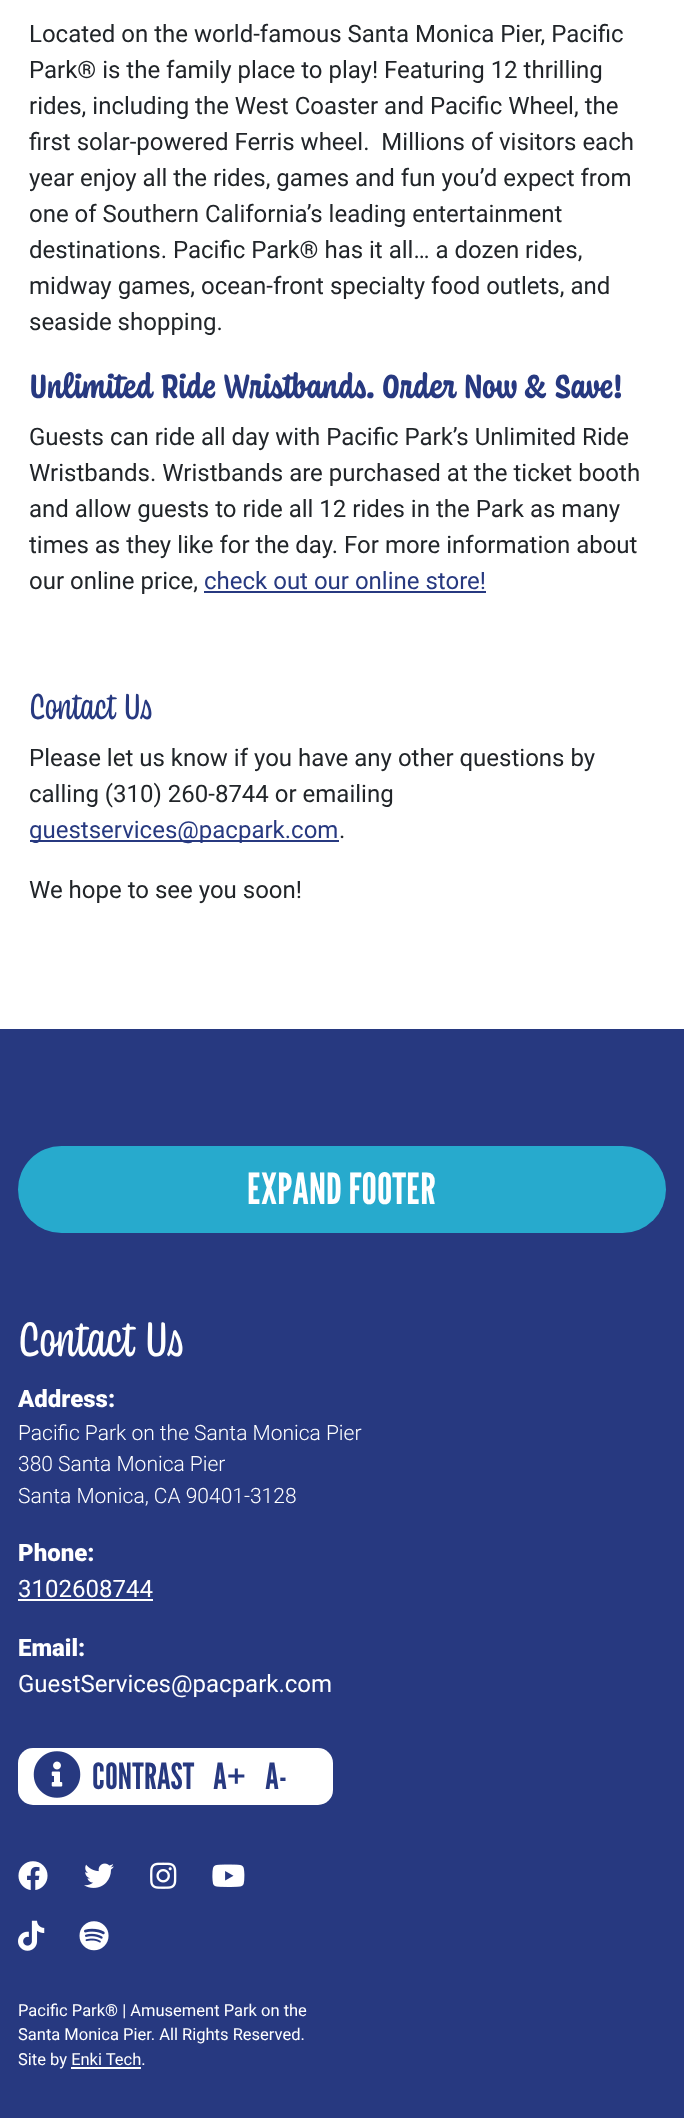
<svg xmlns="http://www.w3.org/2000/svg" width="684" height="2118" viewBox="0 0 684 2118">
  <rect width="100%" height="100%" fill="#ffffff"/>
  <text x="29" y="42" font-family="Roboto" font-size="24" fill="#212529">Located on the world-famous Santa Monica Pier, Pacific</text>
  <text x="29" y="78" font-family="Roboto" font-size="24" fill="#212529">Park® is the family place to play! Featuring 12 thrilling</text>
  <text x="29" y="114" font-family="Roboto" font-size="24" fill="#212529">rides, including the West Coaster and Pacific Wheel, the</text>
  <text x="29" y="150" font-family="Roboto" font-size="24" fill="#212529" xml:space="preserve">first solar-powered Ferris wheel.  Millions of visitors each</text>
  <text x="29" y="186" font-family="Roboto" font-size="24" fill="#212529">year enjoy all the rides, games and fun you’d expect from</text>
  <text x="29" y="222" font-family="Roboto" font-size="24" fill="#212529">one of Southern California’s leading entertainment</text>
  <text x="29" y="258" font-family="Roboto" font-size="24" fill="#212529">destinations. Pacific Park® has it all… a dozen rides,</text>
  <text x="29" y="294" font-family="Roboto" font-size="24" fill="#212529">midway games, ocean-front specialty food outlets, and</text>
  <text x="29" y="330" font-family="Roboto" font-size="24" fill="#212529">seaside shopping.</text>
  <text x="29" y="398" font-family="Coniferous" font-size="35.25" font-weight="bold" fill="#273980">Unlimited Ride Wristbands. Order Now &amp; Save!</text>
  <text x="29" y="445" font-family="Roboto" font-size="24" fill="#212529">Guests can ride all day with Pacific Park’s Unlimited Ride</text>
  <text x="29" y="481" font-family="Roboto" font-size="24" fill="#212529">Wristbands. Wristbands are purchased at the ticket booth</text>
  <text x="29" y="517" font-family="Roboto" font-size="24" fill="#212529">and allow guests to ride all 12 rides in the Park as many</text>
  <text x="29" y="553" font-family="Roboto" font-size="24" fill="#212529">times as they like for the day. For more information about</text>
  <text x="29" y="589" font-family="Roboto" font-size="24" fill="#212529">our online price,</text>
  <text x="204" y="589" font-family="Roboto" font-size="24" fill="#273980">check out our online store!</text>
  <rect x="204" y="591" width="282" height="2" fill="#273980"/>
  <text x="29" y="719" font-family="Coniferous" font-size="38" fill="#273980">Contact Us</text>
  <text x="29" y="766" font-family="Roboto" font-size="24" fill="#212529">Please let us know if you have any other questions by</text>
  <text x="29" y="802" font-family="Roboto" font-size="24" fill="#212529">calling (310) 260-8744 or emailing</text>
  <rect x="30" y="840" width="309" height="2" fill="#273980"/>
  <text x="29" y="838" font-family="Roboto" font-size="24" fill="#273980">guestservices@pacpark.com</text>
  <text x="339" y="838" font-family="Roboto" font-size="24" fill="#212529">.</text>
  <text x="29" y="898" font-family="Roboto" font-size="24" fill="#212529">We hope to see you soon!</text>
  <rect x="0" y="1029" width="684" height="1089" fill="#273980"/>
  <rect x="18" y="1146" width="648" height="87" rx="43.5" fill="#27aacd"/>
  <text x="247" y="1204" font-family="League Gothic" font-size="43" fill="#ffffff">EXPAND FOOTER</text>
  <text x="18" y="1356" font-family="Coniferous" font-size="51" fill="#ffffff">Contact Us</text>
  <text x="18" y="1407" font-family="Roboto" font-size="24" font-weight="900" fill="#ffffff">Address:</text>
  <text x="18" y="1440" font-family="Roboto" font-size="21" font-weight="300" fill="#ffffff">Pacific Park on the Santa Monica Pier</text>
  <text x="18" y="1471" font-family="Roboto" font-size="21" font-weight="300" fill="#ffffff">380 Santa Monica Pier</text>
  <text x="18" y="1503" font-family="Roboto" font-size="21" font-weight="300" fill="#ffffff">Santa Monica, CA 90401-3128</text>
  <text x="18" y="1561" font-family="Roboto" font-size="24" font-weight="900" fill="#ffffff">Phone:</text>
  <text x="18" y="1597" font-family="Roboto" font-size="24" fill="#ffffff">3102608744</text>
  <rect x="18" y="1599" width="135" height="2" fill="#ffffff"/>
  <text x="18" y="1656" font-family="Roboto" font-size="24" font-weight="900" fill="#ffffff">Email:</text>
  <text x="18" y="1692" font-family="Roboto" font-size="24" fill="#ffffff">GuestServices@pacpark.com</text>
  <rect x="18" y="1748" width="315" height="57" rx="15" fill="#ffffff"/>
  <image x="33" y="1751" width="48" height="47" href="img1.png"/>
  <text x="92" y="1789" font-family="League Gothic" font-size="36" fill="#273980">CONTRAST</text>
  <text x="213" y="1789" font-family="League Gothic" font-size="36" fill="#273980">A+</text>
  <text x="265" y="1789" font-family="League Gothic" font-size="36" fill="#273980">A-</text>
  <image x="18" y="1861" width="30" height="29" href="img2.png"/>
  <image x="84" y="1863" width="30" height="25" href="img3.png"/>
  <image x="150" y="1862" width="27" height="27" href="img4.png"/>
  <image x="212" y="1864" width="33" height="23" href="img5.png"/>
  <image x="18" y="1920" width="27" height="31" href="img6.png"/>
  <image x="79" y="1921" width="30" height="30" href="img7.png"/>
  <text x="18" y="2016" font-family="Roboto" font-size="16.5" fill="#ffffff">Pacific Park® | Amusement Park on the</text>
  <text x="18" y="2040" font-family="Roboto" font-size="16.5" fill="#ffffff">Santa Monica Pier. All Rights Reserved.</text>
  <text x="18" y="2065" font-family="Roboto" font-size="16.5" fill="#ffffff">Site by Enki Tech.</text>
  <rect x="71" y="2067" width="70" height="2" fill="#ffffff"/>
</svg>
